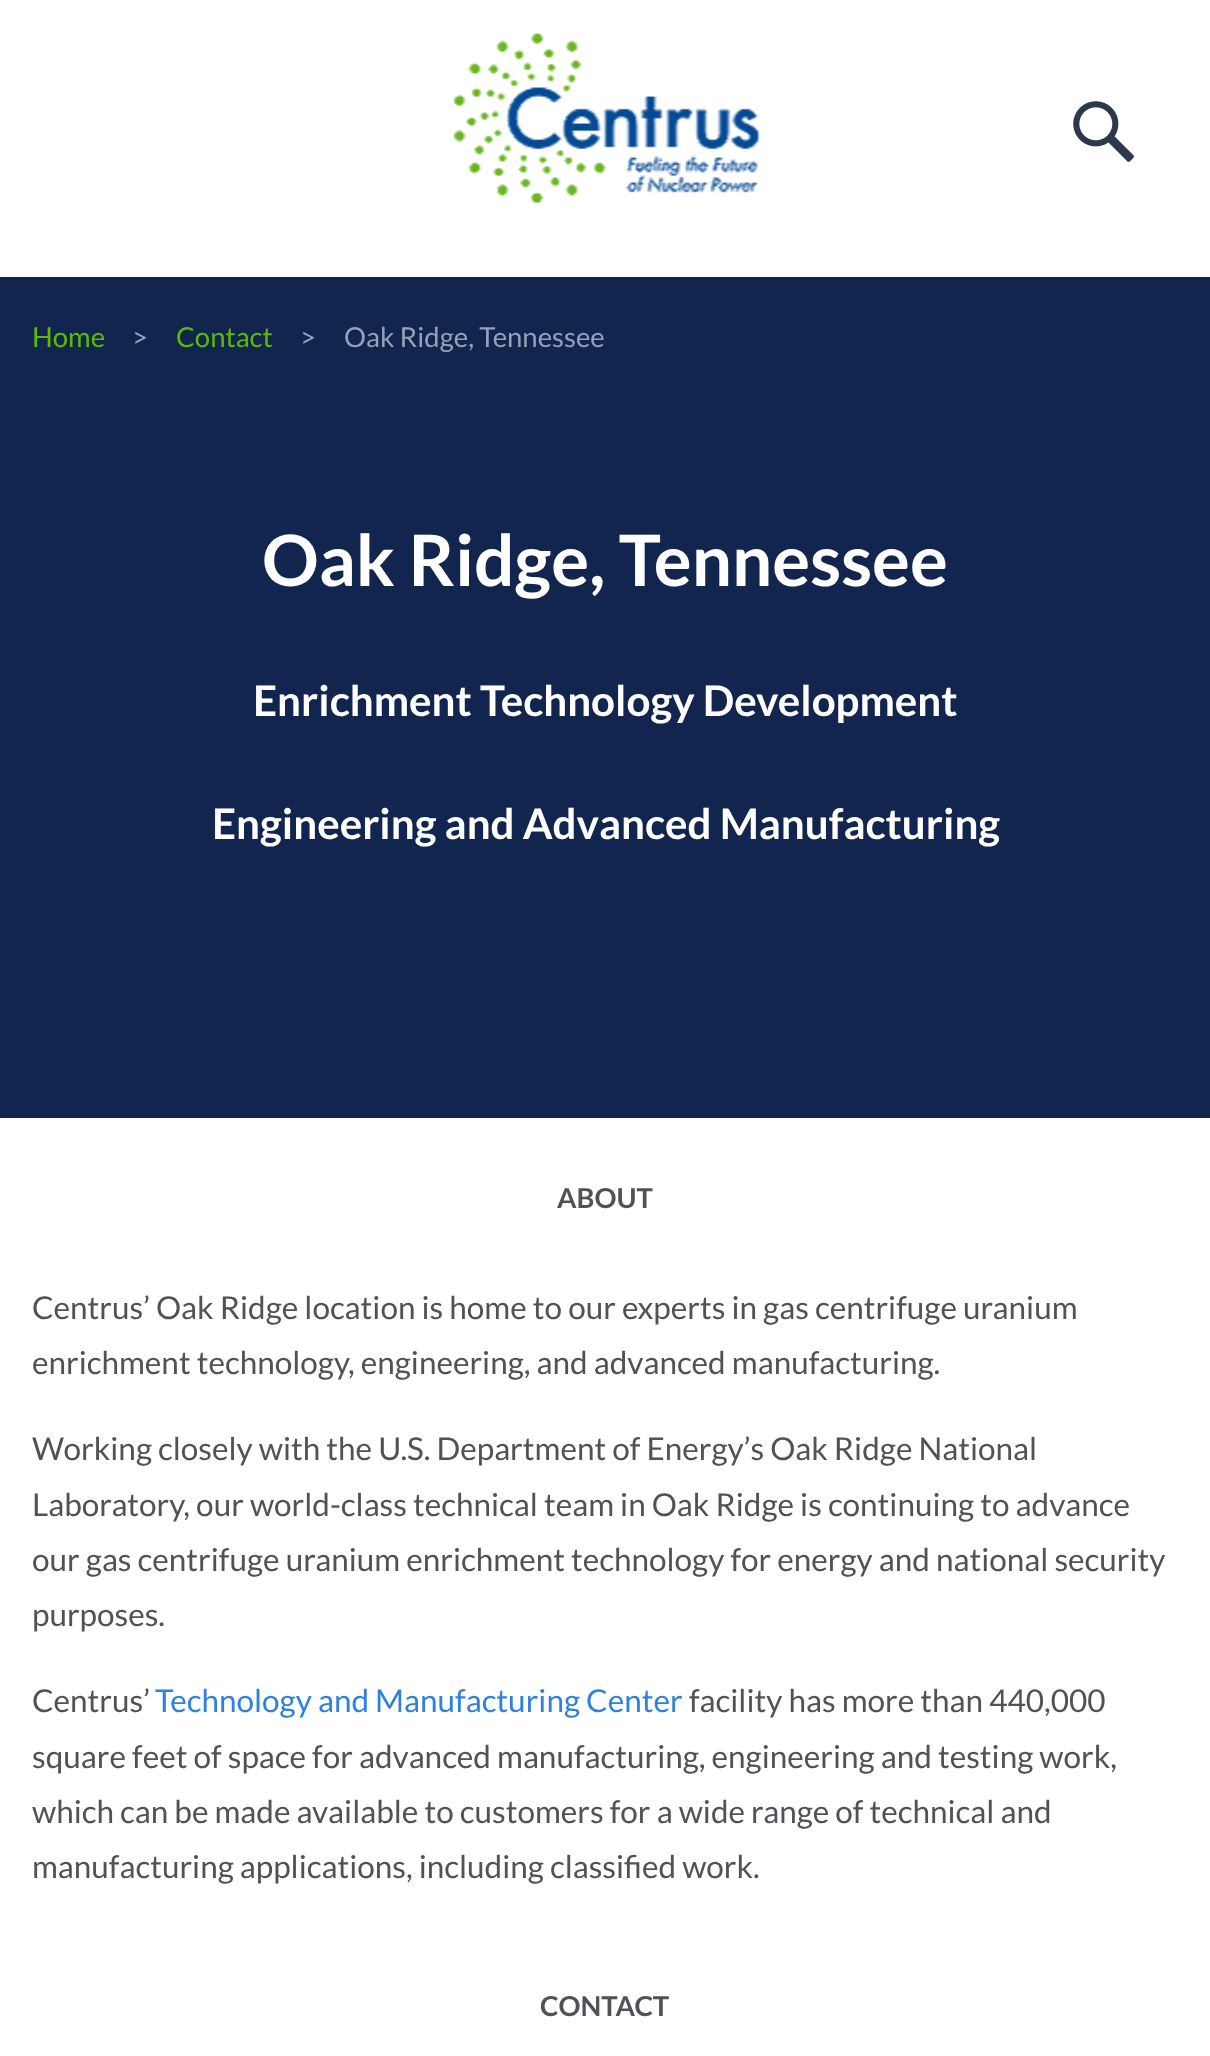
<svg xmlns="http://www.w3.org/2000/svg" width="1210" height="2056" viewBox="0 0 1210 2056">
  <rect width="100%" height="100%" fill="#ffffff"/>
  <image x="453" y="33" width="306" height="170" href="img1.png"/>
  <image x="1073" y="101" width="61" height="61" href="img2.png"/>
  <rect x="0" y="277" width="1210" height="841" fill="#11254e"/>
  <text x="32" y="347" font-family="Lato" font-size="27.5" fill="#5cba01">Home</text>
  <text x="132" y="347" font-family="Lato" font-size="27.5" fill="#91a2b9">&gt;</text>
  <text x="176" y="347" font-family="Lato" font-size="27.5" fill="#5cba01">Contact</text>
  <text x="300" y="347" font-family="Lato" font-size="27.5" fill="#91a2b9">&gt;</text>
  <text x="344" y="347" font-family="Lato" font-size="27.5" fill="#91a2b9">Oak Ridge, Tennessee</text>
  <text x="262" y="586" font-family="Lato" font-size="70.9" font-weight="bold" fill="#ffffff">Oak Ridge, Tennessee</text>
  <text x="253" y="716" font-family="Lato" font-size="42.1" font-weight="bold" fill="#ffffff">Enrichment Technology Development</text>
  <text x="212" y="839" font-family="Lato" font-size="42.1" font-weight="bold" fill="#ffffff">Engineering and Advanced Manufacturing</text>
  <text x="557" y="1208" font-family="Lato" font-size="27.5" font-weight="bold" fill="#505257">ABOUT</text>
  <text x="32" y="1319" font-family="Lato" font-size="31.5" fill="#505257">Centrus’ Oak Ridge location is home to our experts in gas centrifuge uranium</text>
  <text x="32" y="1374" font-family="Lato" font-size="31.5" fill="#505257">enrichment technology, engineering, and advanced manufacturing.</text>
  <text x="32" y="1460" font-family="Lato" font-size="31.5" fill="#505257">Working closely with the U.S. Department of Energy’s Oak Ridge National</text>
  <text x="32" y="1516" font-family="Lato" font-size="31.5" fill="#505257">Laboratory, our world-class technical team in Oak Ridge is continuing to advance</text>
  <text x="32" y="1571" font-family="Lato" font-size="31.5" fill="#505257">our gas centrifuge uranium enrichment technology for energy and national security</text>
  <text x="32" y="1626" font-family="Lato" font-size="31.5" fill="#505257">purposes.</text>
  <text x="32" y="1712" font-family="Lato" font-size="31.5" fill="#505257">Centrus’</text>
  <text x="155" y="1712" font-family="Lato" font-size="31.5" fill="#2f82dc">Technology and Manufacturing Center</text>
  <text x="689" y="1712" font-family="Lato" font-size="31.5" fill="#505257">facility has more than 440,000</text>
  <text x="32" y="1768" font-family="Lato" font-size="31.5" fill="#505257">square feet of space for advanced manufacturing, engineering and testing work,</text>
  <text x="32" y="1823" font-family="Lato" font-size="31.5" fill="#505257">which can be made available to customers for a wide range of technical and</text>
  <text x="32" y="1878" font-family="Lato" font-size="31.5" fill="#505257">manufacturing applications, including classified work.</text>
  <text x="540" y="2016" font-family="Lato" font-size="27.5" font-weight="bold" fill="#505257">CONTACT</text>
</svg>
